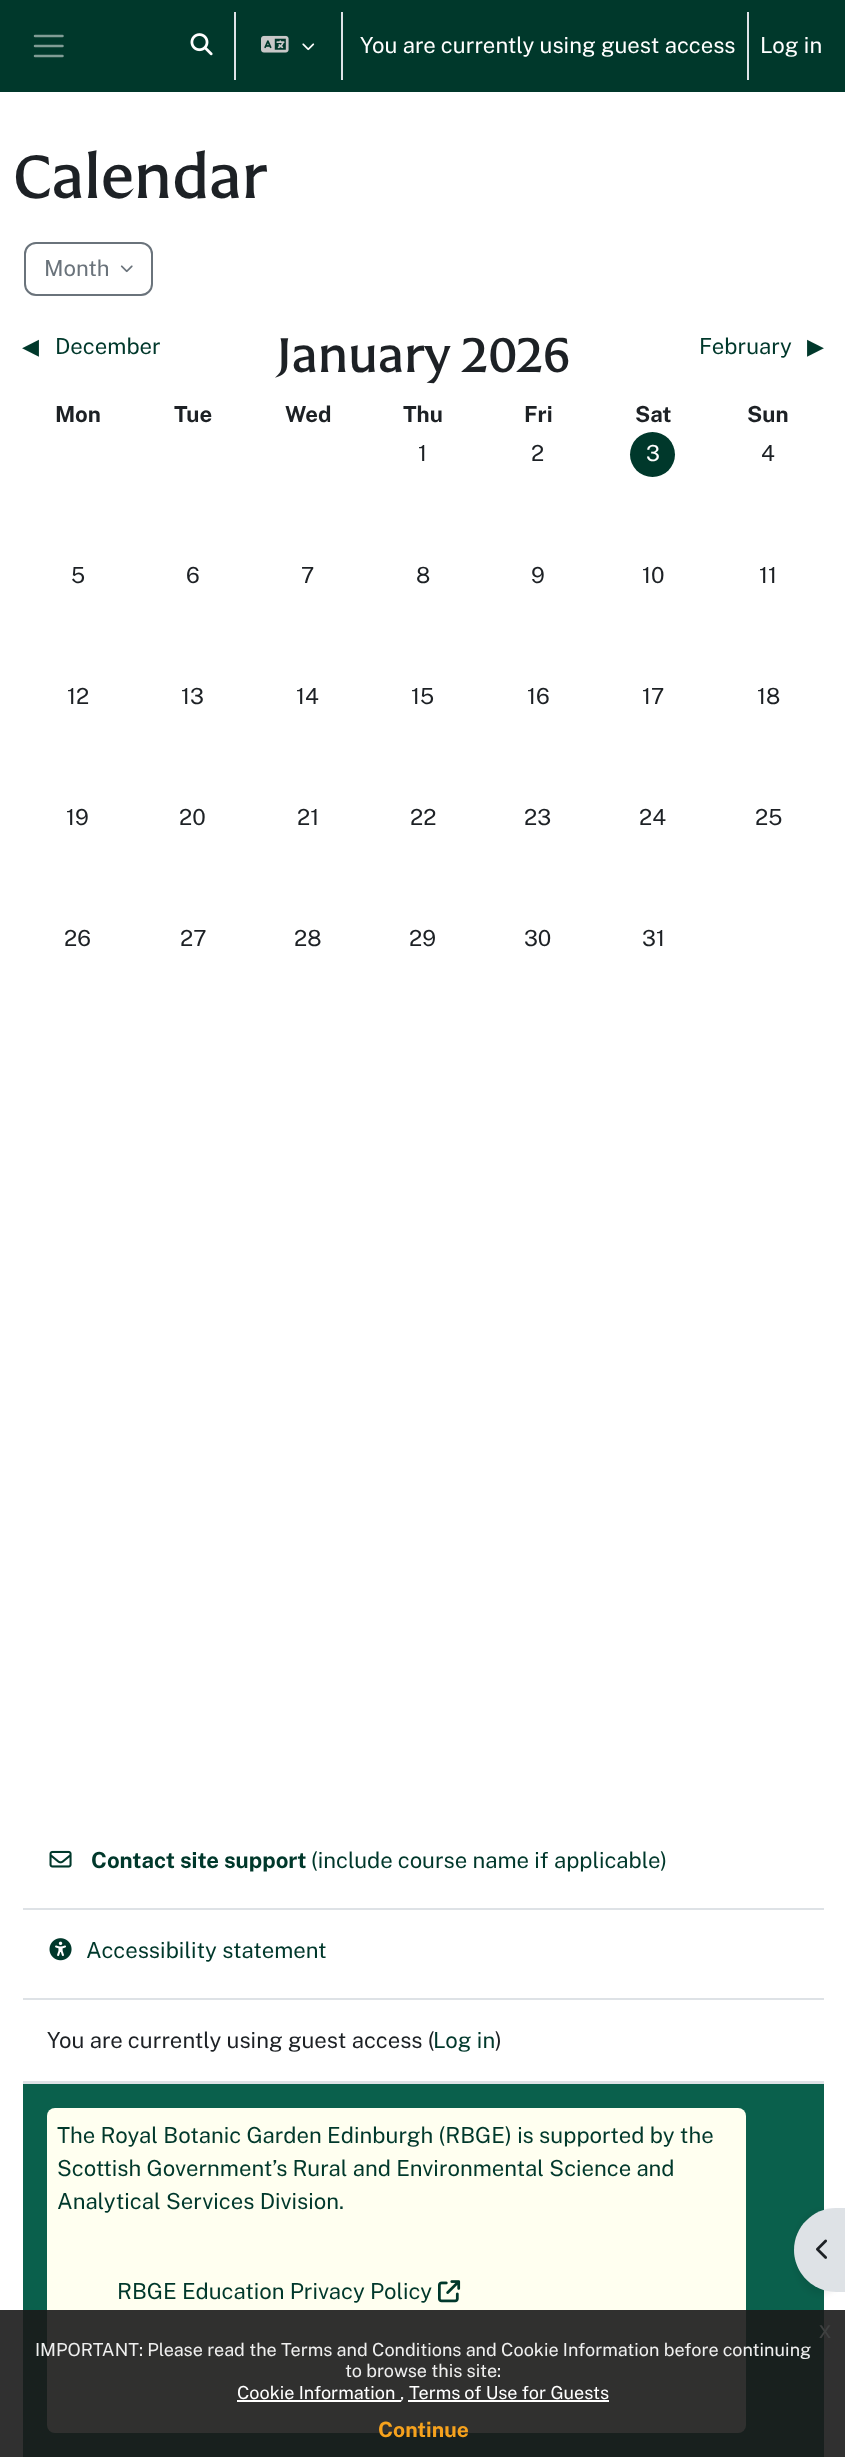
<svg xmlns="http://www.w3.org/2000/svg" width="845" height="2457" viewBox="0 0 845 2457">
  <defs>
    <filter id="blur1" x="-50%" y="-200%" width="200%" height="500%"><feGaussianBlur stdDeviation="3"/></filter>
  </defs>
  <rect width="100%" height="100%" fill="#ffffff"/>
  <rect x="0" y="0" width="845" height="92" fill="#00382b"/>
  <path d="M35 36H62.5M35 46H62.5M35 56H62.5" fill="none" stroke="#809c95" stroke-width="2.5" stroke-linecap="round"/>
  <image x="190" y="33" width="23" height="23" href="img1.png"/>
  <rect x="234" y="12" width="2" height="68" fill="#dee2e6"/>
  <image x="261" y="35" width="28" height="18" href="img2.png"/>
  <image x="302" y="43" width="13" height="8" href="img3.png"/>
  <rect x="341" y="12" width="2" height="68" fill="#dee2e6"/>
  <text x="360" y="53" font-family="Public Sans" font-size="22.1" fill="#ffffff">You are currently using guest access</text>
  <rect x="747" y="12" width="2" height="68" fill="#dee2e6"/>
  <text x="760" y="53" font-family="Public Sans" font-size="22.1" fill="#ffffff">Log in</text>
  <text x="12" y="198" font-family="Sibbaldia" font-size="60" font-weight="bold" fill="#1d2125">Calendar</text>
  <rect x="25" y="243" width="127" height="52" rx="11" fill="none" stroke="#6a737b" stroke-width="2"/>
  <text x="44" y="276" font-family="Public Sans" font-size="22.1" fill="#6a737b">Month</text>
  <image x="120" y="265" width="13" height="8" href="img4.png"/>
  <text x="22" y="354" font-family="DejaVu Sans" font-size="22.1" fill="#00382b">◀︎</text>
  <text x="55" y="354" font-family="Public Sans" font-size="22.1" fill="#00382b">December</text>
  <text x="276" y="372" font-family="Sibbaldia" font-size="48" font-weight="bold" fill="#1d2125">January 2026</text>
  <text x="699" y="354" font-family="Public Sans" font-size="22.1" fill="#00382b">February</text>
  <text x="807" y="354" font-family="DejaVu Sans" font-size="22.1" fill="#00382b">▶︎</text>
  <text x="55" y="422" font-family="Public Sans" font-size="22.1" font-weight="bold" fill="#1d2125">Mon</text>
  <text x="174" y="422" font-family="Public Sans" font-size="22.1" font-weight="bold" fill="#1d2125">Tue</text>
  <text x="285" y="422" font-family="Public Sans" font-size="22.1" font-weight="bold" fill="#1d2125">Wed</text>
  <text x="403" y="422" font-family="Public Sans" font-size="22.1" font-weight="bold" fill="#1d2125">Thu</text>
  <text x="524" y="422" font-family="Public Sans" font-size="22.1" font-weight="bold" fill="#1d2125">Fri</text>
  <text x="635" y="422" font-family="Public Sans" font-size="22.1" font-weight="bold" fill="#1d2125">Sat</text>
  <text x="747" y="422" font-family="Public Sans" font-size="22.1" font-weight="bold" fill="#1d2125">Sun</text>
  <text x="418" y="461" font-family="Public Sans" font-size="22.1" fill="#1d2125">1</text>
  <text x="531" y="461" font-family="Public Sans" font-size="22.1" fill="#1d2125">2</text>
  <circle cx="652.5" cy="454.5" r="22.5" fill="#00382b"/>
  <text x="646" y="461" font-family="Public Sans" font-size="22.1" fill="#ffffff">3</text>
  <text x="761" y="461" font-family="Public Sans" font-size="22.1" fill="#1d2125">4</text>
  <text x="71" y="583" font-family="Public Sans" font-size="22.1" fill="#1d2125">5</text>
  <text x="186" y="583" font-family="Public Sans" font-size="22.1" fill="#1d2125">6</text>
  <text x="301" y="583" font-family="Public Sans" font-size="22.1" fill="#1d2125">7</text>
  <text x="416" y="583" font-family="Public Sans" font-size="22.1" fill="#1d2125">8</text>
  <text x="531" y="583" font-family="Public Sans" font-size="22.1" fill="#1d2125">9</text>
  <text x="642" y="583" font-family="Public Sans" font-size="22.1" fill="#1d2125">10</text>
  <text x="759" y="583" font-family="Public Sans" font-size="22.1" fill="#1d2125">11</text>
  <text x="67" y="704" font-family="Public Sans" font-size="22.1" fill="#1d2125">12</text>
  <text x="181" y="704" font-family="Public Sans" font-size="22.1" fill="#1d2125">13</text>
  <text x="296" y="704" font-family="Public Sans" font-size="22.1" fill="#1d2125">14</text>
  <text x="411" y="704" font-family="Public Sans" font-size="22.1" fill="#1d2125">15</text>
  <text x="527" y="704" font-family="Public Sans" font-size="22.1" fill="#1d2125">16</text>
  <text x="642" y="704" font-family="Public Sans" font-size="22.1" fill="#1d2125">17</text>
  <text x="757" y="704" font-family="Public Sans" font-size="22.1" fill="#1d2125">18</text>
  <text x="66" y="825" font-family="Public Sans" font-size="22.1" fill="#1d2125">19</text>
  <text x="179" y="825" font-family="Public Sans" font-size="22.1" fill="#1d2125">20</text>
  <text x="297" y="825" font-family="Public Sans" font-size="22.1" fill="#1d2125">21</text>
  <text x="410" y="825" font-family="Public Sans" font-size="22.1" fill="#1d2125">22</text>
  <text x="524" y="825" font-family="Public Sans" font-size="22.1" fill="#1d2125">23</text>
  <text x="639" y="825" font-family="Public Sans" font-size="22.1" fill="#1d2125">24</text>
  <text x="755" y="825" font-family="Public Sans" font-size="22.1" fill="#1d2125">25</text>
  <text x="64" y="946" font-family="Public Sans" font-size="22.1" fill="#1d2125">26</text>
  <text x="180" y="946" font-family="Public Sans" font-size="22.1" fill="#1d2125">27</text>
  <text x="294" y="946" font-family="Public Sans" font-size="22.1" fill="#1d2125">28</text>
  <text x="409" y="946" font-family="Public Sans" font-size="22.1" fill="#1d2125">29</text>
  <text x="524" y="946" font-family="Public Sans" font-size="22.1" fill="#1d2125">30</text>
  <text x="642" y="946" font-family="Public Sans" font-size="22.1" fill="#1d2125">31</text>
  <rect x="23" y="2084" width="801" height="373" fill="#0a604c"/>
  <rect x="794" y="2211" width="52" height="84" rx="42" fill="#000000" fill-opacity="0.07" filter="url(#blur1)"/>
  <path d="M836 2208H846V2292H836C813 2292 794 2273 794 2250C794 2227 813 2208 836 2208Z" fill="#dee2e6"/>
  <image x="816" y="2239" width="11" height="20" href="img5.png"/>
  <rect x="23" y="1908" width="801" height="2" fill="#dee2e6"/>
  <image x="49" y="1850" width="23" height="18" href="img6.png"/>
  <text x="91" y="1868" font-family="Public Sans" font-size="22.1" font-weight="bold" fill="#00382b">Contact site support</text>
  <text x="311" y="1868" font-family="Public Sans" font-size="22.1" fill="#00382b">(include course name if applicable)</text>
  <rect x="23" y="1998" width="801" height="2" fill="#dee2e6"/>
  <image x="49" y="1938" width="23" height="23" href="img7.png"/>
  <text x="86" y="1958" font-family="Public Sans" font-size="22.1" fill="#00382b">Accessibility statement</text>
  <rect x="23" y="2081" width="801" height="3" fill="#dee2e6"/>
  <text x="47" y="2048" font-family="Public Sans" font-size="22.1" fill="#1d2125">You are currently using guest access (</text>
  <text x="433" y="2048" font-family="Public Sans" font-size="22.1" fill="#00382b">Log in</text>
  <text x="495" y="2048" font-family="Public Sans" font-size="22.1" fill="#1d2125">)</text>
  <rect x="47" y="2108" width="699" height="325" rx="8" fill="#fffff0"/>
  <text x="57" y="2143" font-family="Public Sans" font-size="22.1" fill="#00382b">The Royal Botanic Garden Edinburgh (RBGE) is supported by the</text>
  <text x="57" y="2176" font-family="Public Sans" font-size="22.1" fill="#00382b">Scottish Government’s Rural and Environmental Science and</text>
  <text x="57" y="2209" font-family="Public Sans" font-size="22.1" fill="#00382b">Analytical Services Division.</text>
  <text x="117" y="2299" font-family="Public Sans" font-size="22.1" fill="#00382b">RBGE Education Privacy Policy</text>
  <image x="438" y="2280" width="23" height="23" href="img8.png"/>
  <rect x="0" y="2310" width="845" height="147" fill="#191919" fill-opacity="0.9"/>
  <text x="819" y="2338" font-family="Liberation Sans" font-size="24" fill="#3f4141">x</text>
  <text x="35" y="2356" font-family="Public Sans" font-size="18" fill="#efefef">IMPORTANT: Please read the Terms and Conditions and Cookie Information before continuing</text>
  <text x="345" y="2377" font-family="Public Sans" font-size="18" fill="#efefef">to browse this site:</text>
  <text x="237" y="2399" font-family="Public Sans" font-size="18" fill="#ffffff">Cookie Information</text>
  <rect x="237" y="2400" width="164" height="2" fill="#ffffff"/>
  <text x="400" y="2399" font-family="Public Sans" font-size="18" fill="#efefef">,</text>
  <rect x="408" y="2400" width="201" height="2" fill="#ffffff"/>
  <text x="409" y="2399" font-family="Public Sans" font-size="18" fill="#ffffff">Terms of Use for Guests</text>
  <text x="378" y="2437" font-family="Public Sans" font-size="21" font-weight="bold" fill="#f6a21d">Continue</text>
</svg>
